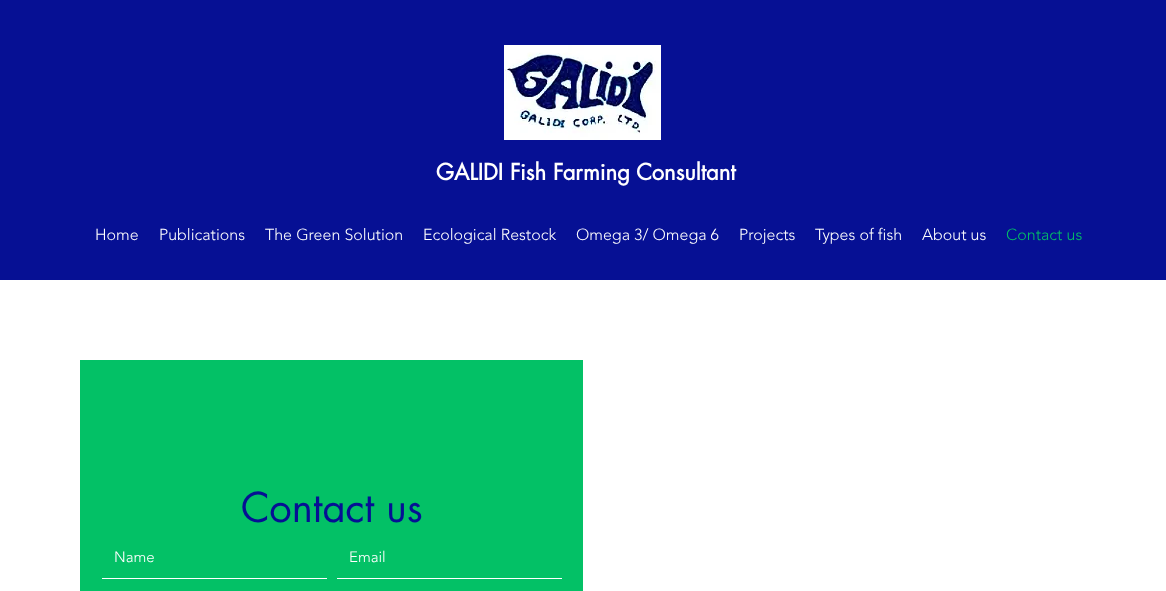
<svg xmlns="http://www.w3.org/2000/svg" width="1166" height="591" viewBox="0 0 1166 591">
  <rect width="100%" height="100%" fill="#ffffff"/>
  <rect x="0" y="0" width="1166" height="280" fill="#061094"/>
  <image x="504" y="45" width="157" height="95" href="img1.png"/>
  <text x="436" y="180" font-family="futura" font-size="22" font-weight="bold" fill="#ffffff">GALIDI Fish Farming Consultant</text>
  <text x="95" y="240" font-family="'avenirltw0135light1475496'" font-size="16" font-weight="300" fill="#ffffff">Home</text>
  <text x="159" y="240" font-family="'avenirltw0135light1475496'" font-size="16" font-weight="300" fill="#ffffff">Publications</text>
  <text x="265" y="240" font-family="'avenirltw0135light1475496'" font-size="16" font-weight="300" fill="#ffffff">The Green Solution</text>
  <text x="423" y="240" font-family="'avenirltw0135light1475496'" font-size="16" font-weight="300" fill="#ffffff">Ecological Restock</text>
  <text x="576" y="240" font-family="'avenirltw0135light1475496'" font-size="16" font-weight="300" fill="#ffffff">Omega 3/ Omega 6</text>
  <text x="739" y="240" font-family="'avenirltw0135light1475496'" font-size="16" font-weight="300" fill="#ffffff">Projects</text>
  <text x="815" y="240" font-family="'avenirltw0135light1475496'" font-size="16" font-weight="300" fill="#ffffff">Types of fish</text>
  <text x="922" y="240" font-family="'avenirltw0135light1475496'" font-size="16" font-weight="300" fill="#ffffff">About us</text>
  <text x="1006" y="240" font-family="'avenirltw0135light1475496'" font-size="16" font-weight="300" fill="#03c166">Contact us</text>
  <rect x="80" y="360" width="503" height="231" fill="#03c166"/>
  <text x="241" y="522" font-family="futura" font-size="40" fill="#061094">Contact us</text>
  <rect x="102" y="578" width="225" height="1" fill="#ffffff"/>
  <text x="114" y="562" font-family="'avenirltw0135light1475496'" font-size="15" font-weight="300" fill="#ffffff">Name</text>
  <rect x="337" y="578" width="225" height="1" fill="#ffffff"/>
  <text x="349" y="562" font-family="'avenirltw0135light1475496'" font-size="15" font-weight="300" fill="#ffffff">Email</text>
</svg>
